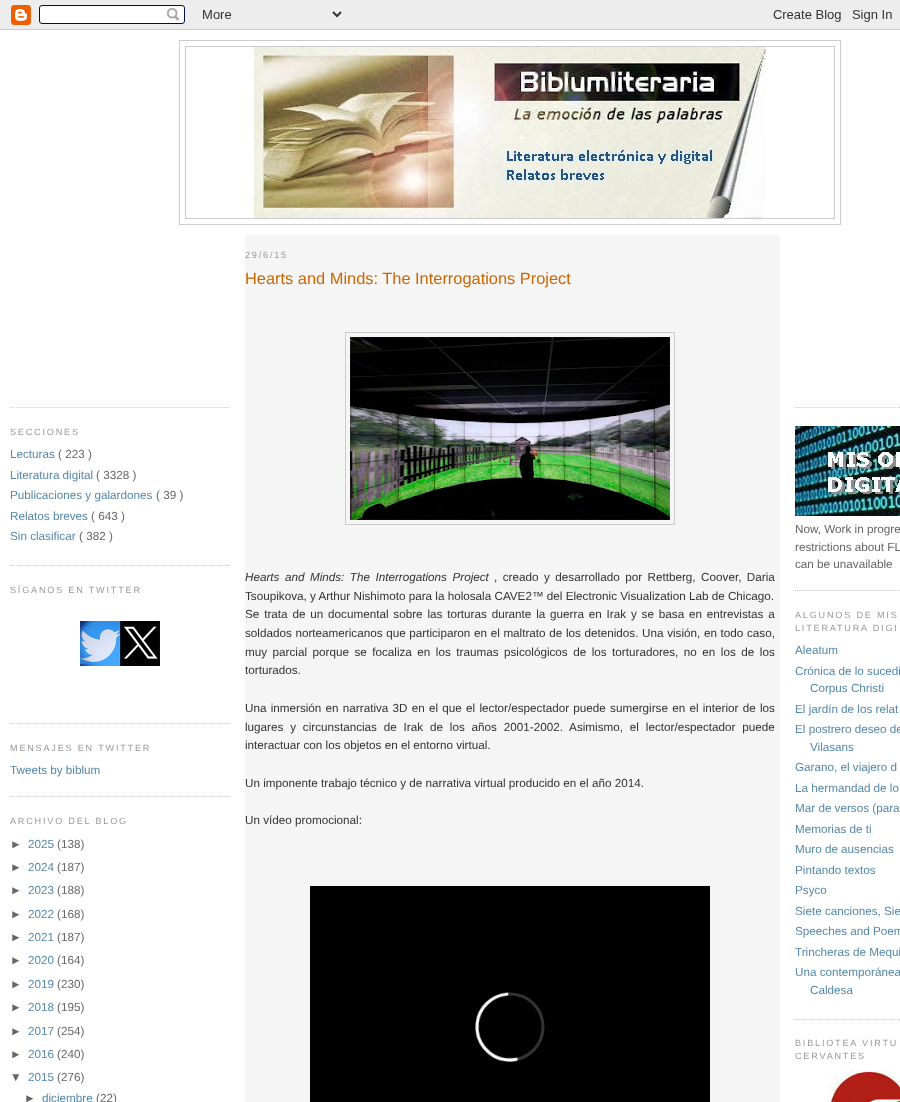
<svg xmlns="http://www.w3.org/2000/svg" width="900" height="1102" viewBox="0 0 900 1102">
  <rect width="100%" height="100%" fill="#ffffff"/>
  <image x="0" y="0" width="900" height="30" href="img1.png"/>
  <rect x="179.5" y="40.5" width="661" height="184" fill="none" stroke="#cccccc"/>
  <rect x="185.5" y="46.5" width="649" height="172" fill="none" stroke="#cccccc"/>
  <image x="254" y="47" width="512" height="171" href="img2.png"/>
  <path d="M10 407.5H230" fill="none" stroke="#cccccc" stroke-dasharray="1 1"/>
  <path d="M10 565.5H230" fill="none" stroke="#cccccc" stroke-dasharray="1 1"/>
  <text x="10" y="435" font-family="Liberation Sans" font-size="9.1" letter-spacing="1.8" fill="#999999">SECCIONES</text>
  <text x="10" y="458" font-family="Liberation Sans" font-size="11.7" fill="#5588aa">Lecturas</text>
  <text x="58" y="458" font-family="Liberation Sans" font-size="11.7" fill="#666666">( 223 )</text>
  <text x="10" y="479" font-family="Liberation Sans" font-size="11.7" fill="#5588aa">Literatura digital</text>
  <text x="96" y="479" font-family="Liberation Sans" font-size="11.7" fill="#666666">( 3328 )</text>
  <text x="10" y="499" font-family="Liberation Sans" font-size="11.7" fill="#5588aa">Publicaciones y galardones</text>
  <text x="156" y="499" font-family="Liberation Sans" font-size="11.7" fill="#666666">( 39 )</text>
  <text x="10" y="520" font-family="Liberation Sans" font-size="11.7" fill="#5588aa">Relatos breves</text>
  <text x="91" y="520" font-family="Liberation Sans" font-size="11.7" fill="#666666">( 643 )</text>
  <text x="10" y="540" font-family="Liberation Sans" font-size="11.7" fill="#5588aa">Sin clasificar</text>
  <text x="79" y="540" font-family="Liberation Sans" font-size="11.7" fill="#666666">( 382 )</text>
  <path d="M10 723.5H230" fill="none" stroke="#cccccc" stroke-dasharray="1 1"/>
  <text x="10" y="593" font-family="Liberation Sans" font-size="9.1" letter-spacing="1.8" fill="#999999">SÍGANOS EN TWITTER</text>
  <image x="80" y="621" width="80" height="45" href="img3.png"/>
  <path d="M10 796.5H230" fill="none" stroke="#cccccc" stroke-dasharray="1 1"/>
  <text x="10" y="751" font-family="Liberation Sans" font-size="9.1" letter-spacing="1.8" fill="#999999">MENSAJES EN TWITTER</text>
  <text x="10" y="774" font-family="Liberation Sans" font-size="11.7" fill="#5588aa">Tweets by biblum</text>
  <text x="10" y="824" font-family="Liberation Sans" font-size="9.1" letter-spacing="1.8" fill="#999999">ARCHIVO DEL BLOG</text>
  <text x="10" y="848" font-family="Liberation Sans" font-size="11.7" fill="#666666">►</text>
  <text x="28" y="848" font-family="Liberation Sans" font-size="11.7" fill="#5588aa">2025</text>
  <text x="57" y="848" font-family="Liberation Sans" font-size="11.7" fill="#666666">(138)</text>
  <text x="10" y="871" font-family="Liberation Sans" font-size="11.7" fill="#666666">►</text>
  <text x="28" y="871" font-family="Liberation Sans" font-size="11.7" fill="#5588aa">2024</text>
  <text x="57" y="871" font-family="Liberation Sans" font-size="11.7" fill="#666666">(187)</text>
  <text x="10" y="894" font-family="Liberation Sans" font-size="11.7" fill="#666666">►</text>
  <text x="28" y="894" font-family="Liberation Sans" font-size="11.7" fill="#5588aa">2023</text>
  <text x="57" y="894" font-family="Liberation Sans" font-size="11.7" fill="#666666">(188)</text>
  <text x="10" y="918" font-family="Liberation Sans" font-size="11.7" fill="#666666">►</text>
  <text x="28" y="918" font-family="Liberation Sans" font-size="11.7" fill="#5588aa">2022</text>
  <text x="57" y="918" font-family="Liberation Sans" font-size="11.7" fill="#666666">(168)</text>
  <text x="10" y="941" font-family="Liberation Sans" font-size="11.7" fill="#666666">►</text>
  <text x="28" y="941" font-family="Liberation Sans" font-size="11.7" fill="#5588aa">2021</text>
  <text x="57" y="941" font-family="Liberation Sans" font-size="11.7" fill="#666666">(187)</text>
  <text x="10" y="964" font-family="Liberation Sans" font-size="11.7" fill="#666666">►</text>
  <text x="28" y="964" font-family="Liberation Sans" font-size="11.7" fill="#5588aa">2020</text>
  <text x="57" y="964" font-family="Liberation Sans" font-size="11.7" fill="#666666">(164)</text>
  <text x="10" y="988" font-family="Liberation Sans" font-size="11.7" fill="#666666">►</text>
  <text x="28" y="988" font-family="Liberation Sans" font-size="11.7" fill="#5588aa">2019</text>
  <text x="57" y="988" font-family="Liberation Sans" font-size="11.7" fill="#666666">(230)</text>
  <text x="10" y="1011" font-family="Liberation Sans" font-size="11.7" fill="#666666">►</text>
  <text x="28" y="1011" font-family="Liberation Sans" font-size="11.7" fill="#5588aa">2018</text>
  <text x="57" y="1011" font-family="Liberation Sans" font-size="11.7" fill="#666666">(195)</text>
  <text x="10" y="1035" font-family="Liberation Sans" font-size="11.7" fill="#666666">►</text>
  <text x="28" y="1035" font-family="Liberation Sans" font-size="11.7" fill="#5588aa">2017</text>
  <text x="57" y="1035" font-family="Liberation Sans" font-size="11.7" fill="#666666">(254)</text>
  <text x="10" y="1058" font-family="Liberation Sans" font-size="11.7" fill="#666666">►</text>
  <text x="28" y="1058" font-family="Liberation Sans" font-size="11.7" fill="#5588aa">2016</text>
  <text x="57" y="1058" font-family="Liberation Sans" font-size="11.7" fill="#666666">(240)</text>
  <text x="10" y="1081" font-family="Liberation Sans" font-size="11.7" fill="#666666">▼</text>
  <text x="28" y="1081" font-family="Liberation Sans" font-size="11.7" fill="#5588aa">2015</text>
  <text x="57" y="1081" font-family="Liberation Sans" font-size="11.7" fill="#666666">(276)</text>
  <text x="24" y="1102" font-family="Liberation Sans" font-size="11.7" fill="#666666">►</text>
  <text x="42" y="1102" font-family="Liberation Sans" font-size="11.7" fill="#5588aa">diciembre</text>
  <text x="96" y="1102" font-family="Liberation Sans" font-size="11.7" fill="#666666">(22)</text>
  <rect x="245" y="235" width="535" height="867" fill="#f5f5f5"/>
  <text x="245" y="258" font-family="Liberation Sans" font-size="9.1" letter-spacing="1.8" fill="#999999">29/6/15</text>
  <text x="245" y="284" font-family="Liberation Sans" font-size="16.4" fill="#cc6600">Hearts and Minds: The Interrogations Project</text>
  <rect x="345.5" y="332.5" width="329" height="192" fill="none" stroke="#cccccc"/>
  <image x="350" y="337" width="320" height="183" href="img4.png"/>
  <text x="245" y="581" word-spacing="2.25" font-family="Liberation Sans" font-size="11.7" font-style="italic" fill="#333333">Hearts and Minds: The Interrogations Project</text>
  <text x="494" y="581" word-spacing="2.25" font-family="Liberation Sans" font-size="11.7" fill="#333333">, creado y desarrollado por Rettberg, Coover, Daria</text>
  <text x="245" y="600" font-family="Liberation Sans" font-size="11.7" fill="#333333">Tsoupikova, y Arthur Nishimoto para la holosala CAVE2™ del Electronic Visualization Lab de Chicago.</text>
  <text x="245" y="618" word-spacing="1.6" font-family="Liberation Sans" font-size="11.7" fill="#333333">Se trata de un documental sobre las torturas durante la guerra en Irak y se basa en entrevistas a</text>
  <text x="245" y="637" word-spacing="0.4" font-family="Liberation Sans" font-size="11.7" fill="#333333">soldados norteamericanos que participaron en el maltrato de los detenidos. Una visión, en todo caso,</text>
  <text x="245" y="656" word-spacing="2.25" font-family="Liberation Sans" font-size="11.7" fill="#333333">muy parcial porque se focaliza en los traumas psicológicos de los torturadores, no en los de los</text>
  <text x="245" y="674" font-family="Liberation Sans" font-size="11.7" fill="#333333">torturados.</text>
  <text x="245" y="712" word-spacing="1" font-family="Liberation Sans" font-size="11.7" fill="#333333">Una inmersión en narrativa 3D en el que el lector/espectador puede sumergirse en el interior de los</text>
  <text x="245" y="731" word-spacing="3.6" font-family="Liberation Sans" font-size="11.7" fill="#333333">lugares y circunstancias de Irak de los años 2001-2002. Asimismo, el lector/espectador puede</text>
  <text x="245" y="749" font-family="Liberation Sans" font-size="11.7" fill="#333333">interactuar con los objetos en el entorno virtual.</text>
  <text x="245" y="787" font-family="Liberation Sans" font-size="11.7" fill="#333333">Un imponente trabajo técnico y de narrativa virtual producido en el año 2014.</text>
  <text x="245" y="824" font-family="Liberation Sans" font-size="11.7" fill="#333333">Un vídeo promocional:</text>
  <image x="310" y="886" width="400" height="216" href="img5.png"/>
  <path d="M795 407.5H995" fill="none" stroke="#cccccc" stroke-dasharray="1 1"/>
  <path d="M795 590.5H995" fill="none" stroke="#cccccc" stroke-dasharray="1 1"/>
  <image x="795" y="426" width="105" height="90" href="img6.png"/>
  <text x="795" y="533" font-family="Liberation Sans" font-size="11.7" fill="#666666">Now, Work in progre</text>
  <text x="795" y="551" font-family="Liberation Sans" font-size="11.7" fill="#666666">restrictions about FL</text>
  <text x="795" y="568" font-family="Liberation Sans" font-size="11.7" fill="#666666">can be unavailable</text>
  <path d="M795 1019.5H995" fill="none" stroke="#cccccc" stroke-dasharray="1 1"/>
  <text x="795" y="618" font-family="Liberation Sans" font-size="9.1" letter-spacing="1.8" fill="#999999">ALGUNOS DE MIS</text>
  <text x="795" y="631" font-family="Liberation Sans" font-size="9.1" letter-spacing="1.8" fill="#999999">LITERATURA DIGI</text>
  <text x="795" y="654" font-family="Liberation Sans" font-size="11.7" fill="#5588aa">Aleatum</text>
  <text x="795" y="675" font-family="Liberation Sans" font-size="11.7" fill="#5588aa">Crónica de lo sucedi</text>
  <text x="810" y="692" font-family="Liberation Sans" font-size="11.7" fill="#5588aa">Corpus Christi</text>
  <text x="795" y="713" font-family="Liberation Sans" font-size="11.7" fill="#5588aa">El jardín de los relat</text>
  <text x="795" y="733" font-family="Liberation Sans" font-size="11.7" fill="#5588aa">El postrero deseo de</text>
  <text x="810" y="751" font-family="Liberation Sans" font-size="11.7" fill="#5588aa">Vilasans</text>
  <text x="795" y="771" font-family="Liberation Sans" font-size="11.7" fill="#5588aa">Garano, el viajero d</text>
  <text x="795" y="792" font-family="Liberation Sans" font-size="11.7" fill="#5588aa">La hermandad de lo</text>
  <text x="795" y="812" font-family="Liberation Sans" font-size="11.7" fill="#5588aa">Mar de versos (para</text>
  <text x="795" y="833" font-family="Liberation Sans" font-size="11.7" fill="#5588aa">Memorias de ti</text>
  <text x="795" y="853" font-family="Liberation Sans" font-size="11.7" fill="#5588aa">Muro de ausencias</text>
  <text x="795" y="874" font-family="Liberation Sans" font-size="11.7" fill="#5588aa">Pintando textos</text>
  <text x="795" y="894" font-family="Liberation Sans" font-size="11.7" fill="#5588aa">Psyco</text>
  <text x="795" y="915" font-family="Liberation Sans" font-size="11.7" fill="#5588aa">Siete canciones, Sie</text>
  <text x="795" y="935" font-family="Liberation Sans" font-size="11.7" fill="#5588aa">Speeches and Poem</text>
  <text x="795" y="956" font-family="Liberation Sans" font-size="11.7" fill="#5588aa">Trincheras de Mequi</text>
  <text x="795" y="976" font-family="Liberation Sans" font-size="11.7" fill="#5588aa">Una contemporánea</text>
  <text x="810" y="994" font-family="Liberation Sans" font-size="11.7" fill="#5588aa">Caldesa</text>
  <text x="795" y="1046" font-family="Liberation Sans" font-size="9.1" letter-spacing="1.8" fill="#999999">BIBLIOTEA VIRTU</text>
  <text x="795" y="1059" font-family="Liberation Sans" font-size="9.1" letter-spacing="1.8" fill="#999999">CERVANTES</text>
  <image x="827" y="1070" width="73" height="32" href="img7.png"/>
</svg>
